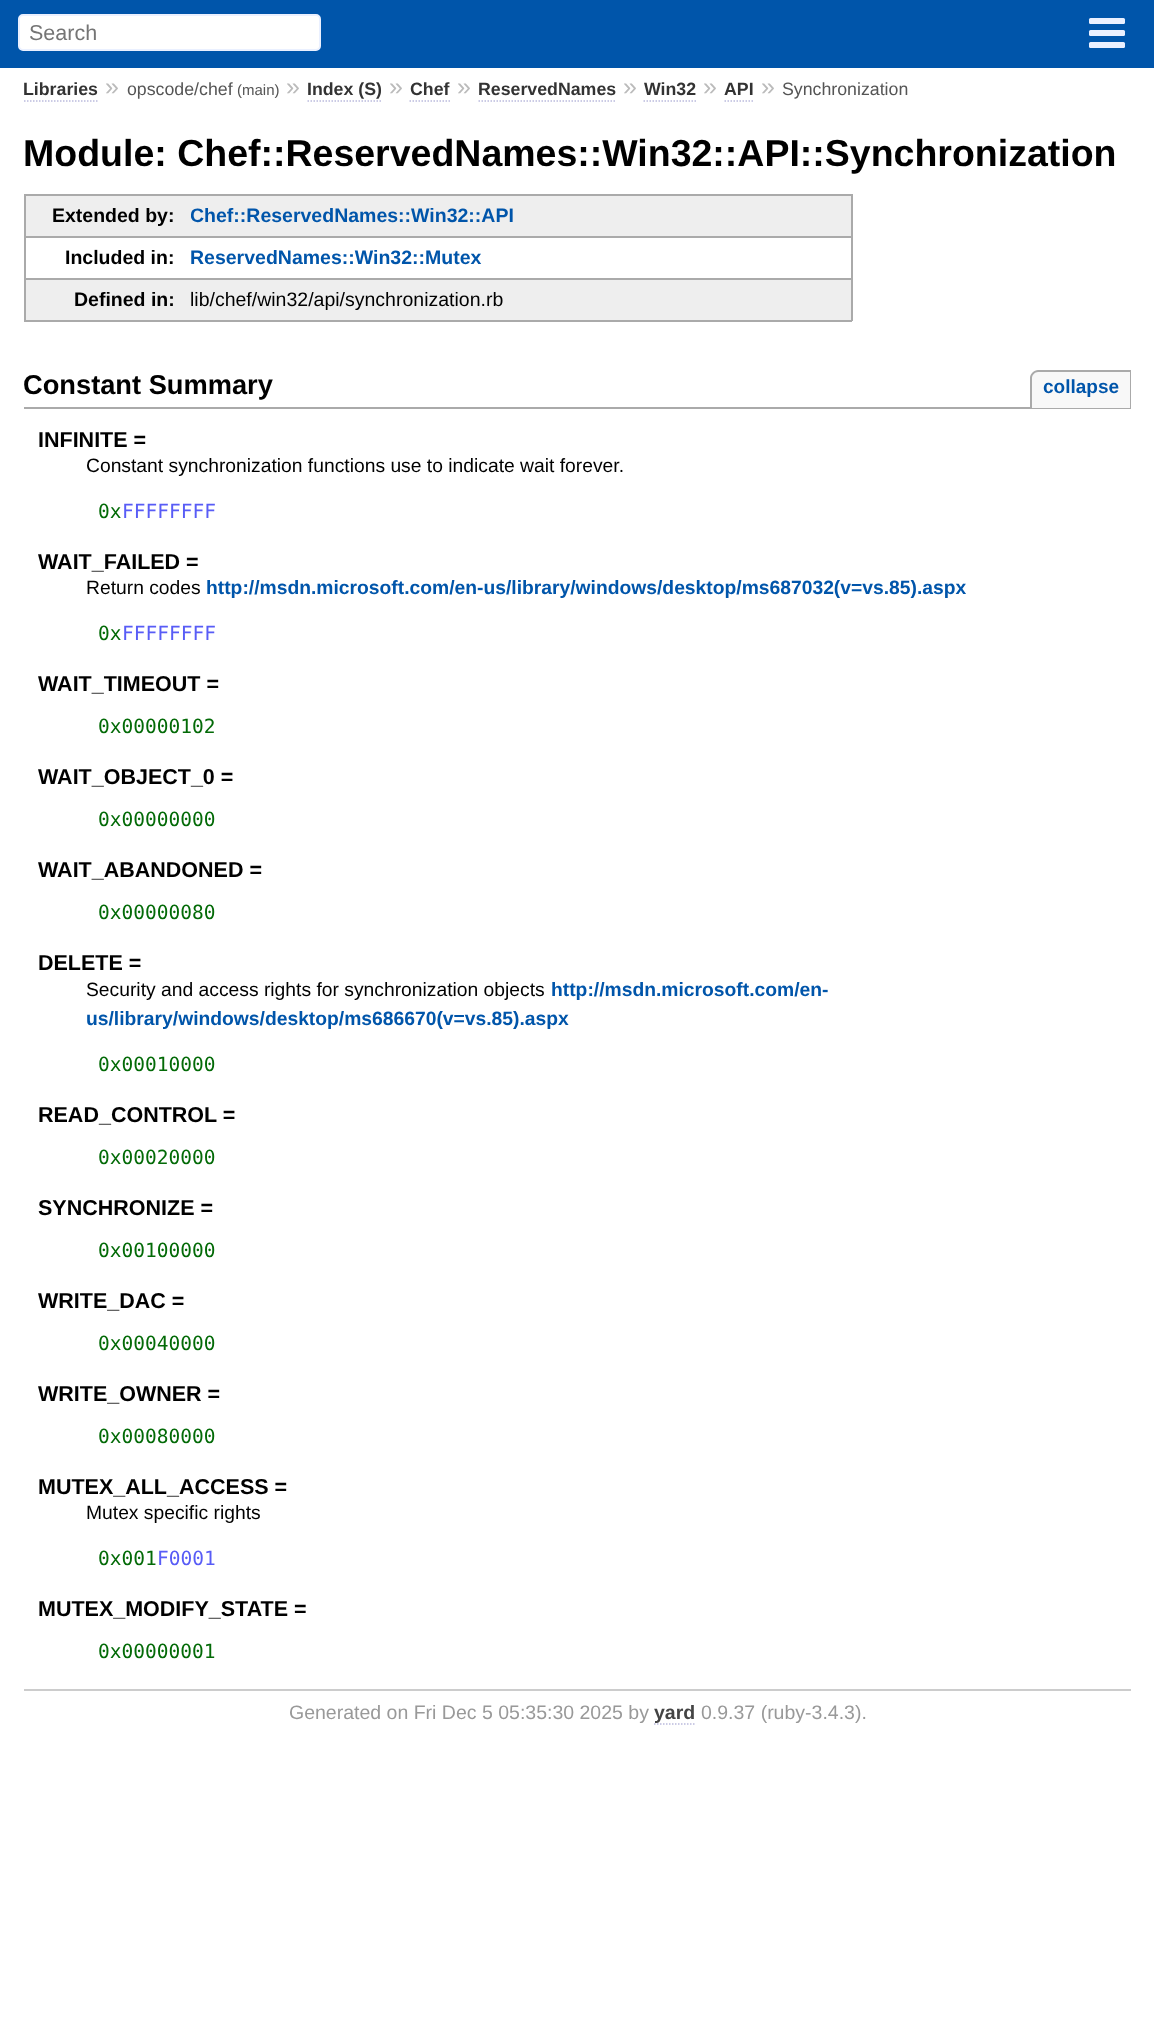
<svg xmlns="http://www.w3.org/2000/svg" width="1154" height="2025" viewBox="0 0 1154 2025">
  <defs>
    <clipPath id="clip1"><rect x="191" y="195" width="660" height="41"/></clipPath>
  </defs>
  <rect width="100%" height="100%" fill="#ffffff"/>
  <rect x="0" y="0" width="1154" height="68" fill="#0055aa"/>
  <rect x="19" y="15" width="301" height="35" rx="4" fill="#ffffff" stroke="#eaf0ff" stroke-width="2"/>
  <text x="29" y="40" font-family="Liberation Sans" font-size="21.5" fill="#757575">Search</text>
  <rect x="1089" y="18" width="36" height="6" rx="1.5" fill="#eaf0ff"/>
  <rect x="1089" y="30" width="36" height="6" rx="1.5" fill="#eaf0ff"/>
  <rect x="1089" y="42" width="36" height="6" rx="1.5" fill="#eaf0ff"/>
  <text x="23" y="95" font-family="Liberation Sans" font-size="17.75" font-weight="bold" fill="#333333">Libraries</text>
  <path d="M24 101H99" fill="none" stroke="#bbbbdd" stroke-width="1.5" stroke-dasharray="1.5 1.5"/>
  <text x="105" y="95" font-family="Liberation Sans" font-size="25" fill="#bbbbbb">»</text>
  <text x="127" y="95" font-family="Liberation Sans" font-size="17.75" fill="#555555">opscode/chef</text>
  <text x="237" y="95" font-family="Liberation Sans" font-size="15" fill="#555555">(main)</text>
  <text x="286" y="95" font-family="Liberation Sans" font-size="25" fill="#bbbbbb">»</text>
  <text x="307" y="95" font-family="Liberation Sans" font-size="17.75" font-weight="bold" fill="#333333">Index (S)</text>
  <path d="M307.5 101H382.5" fill="none" stroke="#bbbbdd" stroke-width="1.5" stroke-dasharray="1.5 1.5"/>
  <text x="389" y="95" font-family="Liberation Sans" font-size="25" fill="#bbbbbb">»</text>
  <text x="410" y="95" font-family="Liberation Sans" font-size="17.75" font-weight="bold" fill="#333333">Chef</text>
  <path d="M409.5 101H450" fill="none" stroke="#bbbbdd" stroke-width="1.5" stroke-dasharray="1.5 1.5"/>
  <text x="457" y="95" font-family="Liberation Sans" font-size="25" fill="#bbbbbb">»</text>
  <text x="478" y="95" font-family="Liberation Sans" font-size="17.75" font-weight="bold" fill="#333333">ReservedNames</text>
  <path d="M478.5 101H616.5" fill="none" stroke="#bbbbdd" stroke-width="1.5" stroke-dasharray="1.5 1.5"/>
  <text x="623" y="95" font-family="Liberation Sans" font-size="25" fill="#bbbbbb">»</text>
  <text x="644" y="95" font-family="Liberation Sans" font-size="17.75" font-weight="bold" fill="#333333">Win32</text>
  <path d="M643.5 101H696" fill="none" stroke="#bbbbdd" stroke-width="1.5" stroke-dasharray="1.5 1.5"/>
  <text x="703" y="95" font-family="Liberation Sans" font-size="25" fill="#bbbbbb">»</text>
  <text x="724" y="95" font-family="Liberation Sans" font-size="17.75" font-weight="bold" fill="#333333">API</text>
  <path d="M724.5 101H754.5" fill="none" stroke="#bbbbdd" stroke-width="1.5" stroke-dasharray="1.5 1.5"/>
  <text x="761" y="95" font-family="Liberation Sans" font-size="25" fill="#bbbbbb">»</text>
  <text x="782" y="95" font-family="Liberation Sans" font-size="17.75" fill="#555555">Synchronization</text>
  <text x="23" y="166" font-family="Liberation Sans" font-size="37.5" font-weight="bold" fill="#000000">Module: Chef::ReservedNames::Win32::API::Synchronization</text>
  <rect x="26" y="196" width="825" height="40" fill="#eeeeee"/>
  <rect x="24" y="194" width="828" height="2" fill="#aaaaaa"/>
  <rect x="24" y="194" width="2" height="42" fill="#aaaaaa"/>
  <text x="52" y="222" font-family="Liberation Sans" font-size="19.5" font-weight="bold" fill="#000000">Extended by:</text>
  <rect x="24" y="236" width="828" height="2" fill="#aaaaaa"/>
  <rect x="24" y="278" width="828" height="2" fill="#aaaaaa"/>
  <rect x="851" y="194" width="2" height="127" fill="#aaaaaa"/>
  <g clip-path="url(#clip1)">
    <text x="190" y="222" font-family="Liberation Sans" font-size="19.5" font-weight="bold" fill="#0055aa">Chef::ReservedNames::Win32::API</text>
  </g>
  <rect x="24" y="236" width="2" height="42" fill="#aaaaaa"/>
  <text x="65" y="264" font-family="Liberation Sans" font-size="19.5" font-weight="bold" fill="#000000">Included in:</text>
  <text x="190" y="264" font-family="Liberation Sans" font-size="19.5" font-weight="bold" fill="#0055aa">ReservedNames::Win32::Mutex</text>
  <rect x="26" y="280" width="825" height="40" fill="#eeeeee"/>
  <rect x="24" y="320" width="167" height="2" fill="#aaaaaa"/>
  <rect x="24" y="278" width="2" height="43" fill="#aaaaaa"/>
  <text x="74" y="306" font-family="Liberation Sans" font-size="19.5" font-weight="bold" fill="#000000">Defined in:</text>
  <rect x="191" y="320" width="661" height="2" fill="#aaaaaa"/>
  <text x="190" y="306" font-family="Liberation Sans" font-size="19.5" fill="#000000">lib/chef/win32/api/synchronization.rb</text>
  <rect x="24" y="407" width="1107" height="2" fill="#aaaaaa"/>
  <text x="23" y="394" font-family="Liberation Sans" font-size="27.25" font-weight="bold" fill="#000000">Constant Summary</text>
  <path d="M1039 371H1131V408H1031V379C1031 374.5 1034.5 371 1039 371Z" fill="#f8f8f8"/>
  <path d="M1038 370H1131V408H1030V378C1030 374 1034 370 1038 370ZM1038 372H1130V408H1032V378C1032 375 1035 372 1038 372Z" fill="#aaaaaa" fill-rule="evenodd"/>
  <text x="1043" y="393" font-family="Liberation Sans" font-size="19" font-weight="bold" fill="#0055aa">collapse</text>
  <text x="38" y="447" font-family="Liberation Sans" font-size="21.5" font-weight="bold" fill="#000000">INFINITE =</text>
  <text x="86" y="472" font-family="Liberation Sans" font-size="19.3" fill="#000000">Constant synchronization functions use to indicate wait forever.</text>
  <text x="98" y="518" font-family="DejaVu Sans Mono" font-size="19.5" fill="#036a07">0x</text>
  <text x="122" y="518" font-family="DejaVu Sans Mono" font-size="19.5" fill="#585cf6">FFFFFFFF</text>
  <text x="38" y="569" font-family="Liberation Sans" font-size="21.5" font-weight="bold" fill="#000000">WAIT_FAILED =</text>
  <text x="86" y="594" font-family="Liberation Sans" font-size="19.3" fill="#000000">Return codes</text>
  <text x="206" y="594" font-family="Liberation Sans" font-size="19.3" font-weight="bold" fill="#0055aa">http://msdn.microsoft.com/en-us/library/windows/desktop/ms687032(v=vs.85).aspx</text>
  <text x="98" y="640" font-family="DejaVu Sans Mono" font-size="19.5" fill="#036a07">0x</text>
  <text x="122" y="640" font-family="DejaVu Sans Mono" font-size="19.5" fill="#585cf6">FFFFFFFF</text>
  <text x="38" y="691" font-family="Liberation Sans" font-size="21.5" font-weight="bold" fill="#000000">WAIT_TIMEOUT =</text>
  <text x="98" y="733" font-family="DejaVu Sans Mono" font-size="19.5" fill="#036a07">0x00000102</text>
  <text x="38" y="784" font-family="Liberation Sans" font-size="21.5" font-weight="bold" fill="#000000">WAIT_OBJECT_0 =</text>
  <text x="98" y="826" font-family="DejaVu Sans Mono" font-size="19.5" fill="#036a07">0x00000000</text>
  <text x="38" y="877" font-family="Liberation Sans" font-size="21.5" font-weight="bold" fill="#000000">WAIT_ABANDONED =</text>
  <text x="98" y="919" font-family="DejaVu Sans Mono" font-size="19.5" fill="#036a07">0x00000080</text>
  <text x="38" y="970" font-family="Liberation Sans" font-size="21.5" font-weight="bold" fill="#000000">DELETE =</text>
  <text x="86" y="996" font-family="Liberation Sans" font-size="19.3" fill="#000000">Security and access rights for synchronization objects</text>
  <text x="551" y="996" font-family="Liberation Sans" font-size="19.3" font-weight="bold" fill="#0055aa">http://msdn.microsoft.com/en-</text>
  <text x="86" y="1025" font-family="Liberation Sans" font-size="19.3" font-weight="bold" fill="#0055aa">us/library/windows/desktop/ms686670(v=vs.85).aspx</text>
  <text x="98" y="1071" font-family="DejaVu Sans Mono" font-size="19.5" fill="#036a07">0x00010000</text>
  <text x="38" y="1122" font-family="Liberation Sans" font-size="21.5" font-weight="bold" fill="#000000">READ_CONTROL =</text>
  <text x="98" y="1164" font-family="DejaVu Sans Mono" font-size="19.5" fill="#036a07">0x00020000</text>
  <text x="38" y="1215" font-family="Liberation Sans" font-size="21.5" font-weight="bold" fill="#000000">SYNCHRONIZE =</text>
  <text x="98" y="1257" font-family="DejaVu Sans Mono" font-size="19.5" fill="#036a07">0x00100000</text>
  <text x="38" y="1308" font-family="Liberation Sans" font-size="21.5" font-weight="bold" fill="#000000">WRITE_DAC =</text>
  <text x="98" y="1350" font-family="DejaVu Sans Mono" font-size="19.5" fill="#036a07">0x00040000</text>
  <text x="38" y="1401" font-family="Liberation Sans" font-size="21.5" font-weight="bold" fill="#000000">WRITE_OWNER =</text>
  <text x="98" y="1443" font-family="DejaVu Sans Mono" font-size="19.5" fill="#036a07">0x00080000</text>
  <text x="38" y="1494" font-family="Liberation Sans" font-size="21.5" font-weight="bold" fill="#000000">MUTEX_ALL_ACCESS =</text>
  <text x="86" y="1519" font-family="Liberation Sans" font-size="19.3" fill="#000000">Mutex specific rights</text>
  <text x="98" y="1565" font-family="DejaVu Sans Mono" font-size="19.5" fill="#036a07">0x001</text>
  <text x="157" y="1565" font-family="DejaVu Sans Mono" font-size="19.5" fill="#585cf6">F0001</text>
  <text x="38" y="1616" font-family="Liberation Sans" font-size="21.5" font-weight="bold" fill="#000000">MUTEX_MODIFY_STATE =</text>
  <text x="98" y="1658" font-family="DejaVu Sans Mono" font-size="19.5" fill="#036a07">0x00000001</text>
  <rect x="24" y="1689" width="1107" height="2" fill="#cccccc"/>
  <text x="289" y="1719" font-family="Liberation Sans" font-size="19.5" fill="#999999">Generated on Fri Dec 5 05:35:30 2025 by</text>
  <path d="M654 1724H694.5" fill="none" stroke="#bbbbdd" stroke-width="1.5" stroke-dasharray="1.5 1.5"/>
  <text x="654" y="1719" font-family="Liberation Sans" font-size="19.5" font-weight="bold" fill="#444444">yard</text>
  <text x="701" y="1719" font-family="Liberation Sans" font-size="19.5" fill="#999999">0.9.37 (ruby-3.4.3).</text>
</svg>
